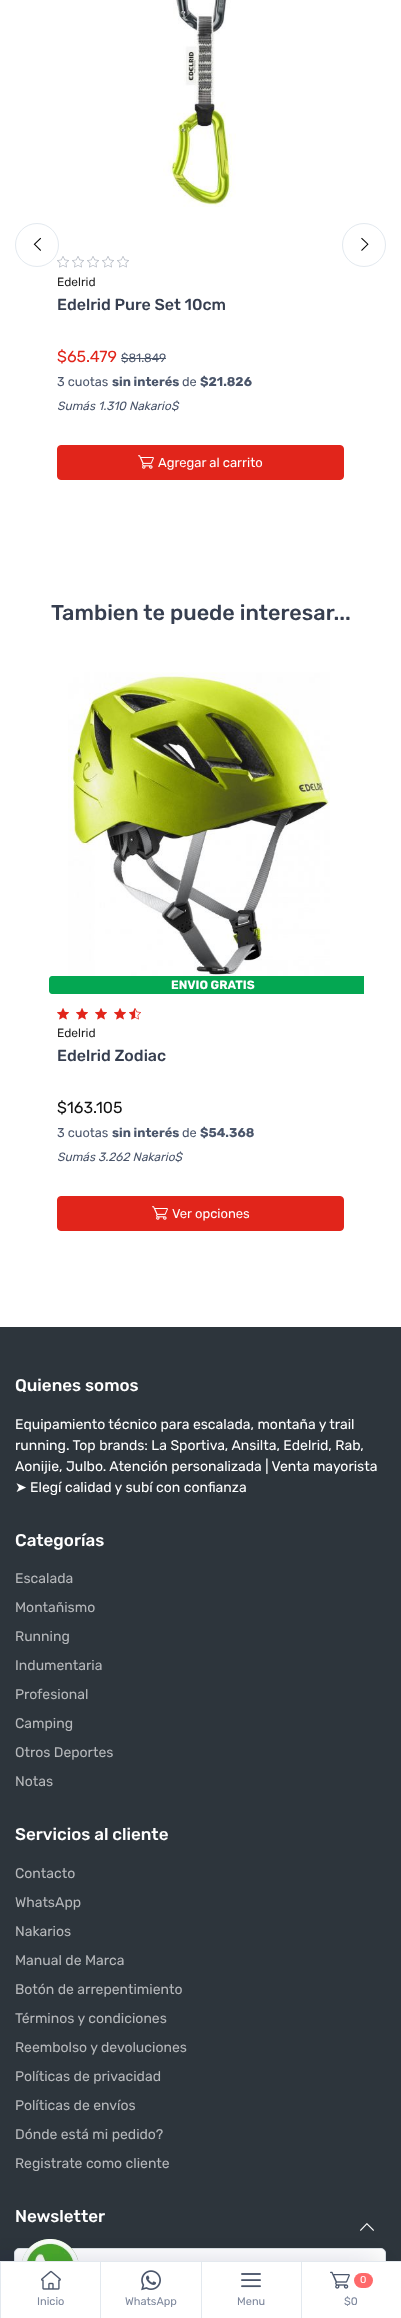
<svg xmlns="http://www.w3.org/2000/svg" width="401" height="2318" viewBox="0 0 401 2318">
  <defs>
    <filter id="blur1" x="-50%" y="-200%" width="200%" height="500%"><feGaussianBlur stdDeviation="16"/></filter>
  </defs>
  <rect width="100%" height="100%" fill="#ffffff"/>
  <image x="57" y="256" width="12" height="12" href="img4.png"/>
  <circle cx="37" cy="245" r="21.5" fill="none" stroke="#e3e9ef"/>
  <image x="33" y="237" width="8" height="14" href="img1.png"/>
  <circle cx="364" cy="245" r="21.5" fill="none" stroke="#e3e9ef"/>
  <image x="361" y="237" width="8" height="14" href="img2.png"/>
  <image x="163" y="0" width="73" height="207" href="img3.png"/>
  <image x="72" y="256" width="12" height="12" href="img4.png"/>
  <image x="87" y="256" width="12" height="12" href="img4.png"/>
  <image x="102" y="256" width="12" height="12" href="img4.png"/>
  <image x="117" y="256" width="12" height="12" href="img4.png"/>
  <text x="57" y="286" font-family="Rubik" font-size="12" fill="#222222">Edelrid</text>
  <text x="57" y="310" font-family="Rubik" font-size="16" font-weight="500" fill="#373f50">Edelrid Pure Set 10cm</text>
  <text x="57" y="362" font-family="Rubik" font-size="16" fill="#e1251b">$65.479</text>
  <text x="121" y="362" font-family="Rubik" font-size="12" fill="#4b566b">$81.849</text>
  <rect x="121" y="358" width="45" height="1" fill="#4b566b"/>
  <text x="57" y="386" font-family="Rubik" font-size="12.75" fill="#4b566b">3 cuotas</text>
  <text x="112" y="386" font-family="Rubik" font-size="12.75" font-weight="bold" fill="#4b566b">sin interés</text>
  <text x="182" y="386" font-family="Rubik" font-size="12.75" fill="#4b566b">de</text>
  <text x="200" y="386" font-family="Rubik" font-size="12.75" font-weight="bold" fill="#4b566b">$21.826</text>
  <text x="57" y="410" font-family="Rubik" font-size="12" font-style="italic" fill="#4b566b">Sumás 1.310 Nakario$</text>
  <rect x="57.5" y="445.5" width="286" height="34" rx="3.5" fill="#e1251b" stroke="#e1251b"/>
  <image x="138" y="455" width="16" height="14" href="img5.png"/>
  <text x="158" y="467" font-family="Rubik" font-size="13" fill="#ffffff">Agregar al carrito</text>
  <text x="51" y="620" font-family="Rubik" font-size="21.6" font-weight="500" fill="#373f50">Tambien te puede interesar...</text>
  <image x="68" y="672" width="262" height="304" href="img6.png"/>
  <path d="M52 976H364V994H52C50.5 994 49 992.5 49 991V979C49 977.5 50.5 976 52 976Z" fill="#04a752"/>
  <text x="171" y="989" font-family="Rubik" font-size="12" font-weight="bold" fill="#ffffff">ENVIO GRATIS</text>
  <image x="57" y="1008" width="12" height="12" href="img7.png"/>
  <image x="76" y="1008" width="12" height="12" href="img7.png"/>
  <image x="95" y="1008" width="12" height="12" href="img7.png"/>
  <image x="114" y="1008" width="12" height="12" href="img7.png"/>
  <image x="129" y="1008" width="12" height="12" href="img8.png"/>
  <text x="57" y="1037" font-family="Rubik" font-size="12" fill="#222222">Edelrid</text>
  <text x="57" y="1061" font-family="Rubik" font-size="16" font-weight="500" fill="#373f50">Edelrid Zodiac</text>
  <text x="57" y="1113" font-family="Rubik" font-size="16" fill="#111111">$163.105</text>
  <text x="57" y="1137" font-family="Rubik" font-size="12.75" fill="#4b566b">3 cuotas</text>
  <text x="112" y="1137" font-family="Rubik" font-size="12.75" font-weight="bold" fill="#4b566b">sin interés</text>
  <text x="182" y="1137" font-family="Rubik" font-size="12.75" fill="#4b566b">de</text>
  <text x="200" y="1137" font-family="Rubik" font-size="12.75" font-weight="bold" fill="#4b566b">$54.368</text>
  <text x="57" y="1161" font-family="Rubik" font-size="12" font-style="italic" fill="#4b566b">Sumás 3.262 Nakario$</text>
  <rect x="57.5" y="1196.5" width="286" height="34" rx="3.5" fill="#e1251b" stroke="#e1251b"/>
  <image x="152" y="1206" width="16" height="14" href="img5.png"/>
  <text x="172" y="1218" font-family="Rubik" font-size="13" fill="#ffffff">Ver opciones</text>
  <rect x="0" y="1327" width="401" height="934" fill="#2d353c"/>
  <text x="15" y="1391" font-family="Rubik" font-size="17" font-weight="500" fill="#ffffff">Quienes somos</text>
  <text x="15" y="1429" font-family="Rubik" font-size="14" fill="#ffffff">Equipamiento técnico para escalada, montaña y trail</text>
  <text x="15" y="1450" font-family="Rubik" font-size="14" fill="#ffffff">running. Top brands: La Sportiva, Ansilta, Edelrid, Rab,</text>
  <text x="15" y="1471" font-family="Rubik" font-size="14" fill="#ffffff">Aonijie, Julbo. Atención personalizada | Venta mayorista</text>
  <text x="15" y="1492" font-family="DejaVu Sans" font-size="14" fill="#ffffff">➤</text>
  <text x="30" y="1492" font-family="Rubik" font-size="14" fill="#ffffff">Elegí calidad y subí con confianza</text>
  <text x="15" y="1546" font-family="Rubik" font-size="17" font-weight="500" fill="#ffffff">Categorías</text>
  <text x="15" y="1583" font-family="Rubik" font-size="14" fill="#b6b8bb">Escalada</text>
  <text x="15" y="1612" font-family="Rubik" font-size="14" fill="#b6b8bb">Montañismo</text>
  <text x="15" y="1641" font-family="Rubik" font-size="14" fill="#b6b8bb">Running</text>
  <text x="15" y="1670" font-family="Rubik" font-size="14" fill="#b6b8bb">Indumentaria</text>
  <text x="15" y="1699" font-family="Rubik" font-size="14" fill="#b6b8bb">Profesional</text>
  <text x="15" y="1728" font-family="Rubik" font-size="14" fill="#b6b8bb">Camping</text>
  <text x="15" y="1757" font-family="Rubik" font-size="14" fill="#b6b8bb">Otros Deportes</text>
  <text x="15" y="1786" font-family="Rubik" font-size="14" fill="#b6b8bb">Notas</text>
  <text x="15" y="1840" font-family="Rubik" font-size="17" font-weight="500" fill="#ffffff">Servicios al cliente</text>
  <text x="15" y="1878" font-family="Rubik" font-size="14" fill="#b6b8bb">Contacto</text>
  <text x="15" y="1907" font-family="Rubik" font-size="14" fill="#b6b8bb">WhatsApp</text>
  <text x="15" y="1936" font-family="Rubik" font-size="14" fill="#b6b8bb">Nakarios</text>
  <text x="15" y="1965" font-family="Rubik" font-size="14" fill="#b6b8bb">Manual de Marca</text>
  <text x="15" y="1994" font-family="Rubik" font-size="14" fill="#b6b8bb">Botón de arrepentimiento</text>
  <text x="15" y="2023" font-family="Rubik" font-size="14" fill="#b6b8bb">Términos y condiciones</text>
  <text x="15" y="2052" font-family="Rubik" font-size="14" fill="#b6b8bb">Reembolso y devoluciones</text>
  <text x="15" y="2081" font-family="Rubik" font-size="14" fill="#b6b8bb">Políticas de privacidad</text>
  <text x="15" y="2110" font-family="Rubik" font-size="14" fill="#b6b8bb">Políticas de envíos</text>
  <text x="15" y="2139" font-family="Rubik" font-size="14" fill="#b6b8bb">Dónde está mi pedido?</text>
  <text x="15" y="2168" font-family="Rubik" font-size="14" fill="#b6b8bb">Registrate como cliente</text>
  <text x="15" y="2222" font-family="Rubik" font-size="17" font-weight="500" fill="#ffffff">Newsletter</text>
  <rect x="14.5" y="2248.5" width="371" height="43" rx="4.5" fill="#ffffff" stroke="#dae1e7"/>
  <image x="360" y="2223" width="14" height="8" href="img9.png"/>
  <image x="22" y="2239" width="57" height="22" href="img10.png"/>
  <rect x="-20" y="2261" width="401" height="57" fill="#2b3445" fill-opacity="0.15" filter="url(#blur1)"/>
  <rect x="1" y="2262" width="400" height="56" fill="#ffffff"/>
  <rect x="0" y="2261" width="401" height="1" fill="#e3e9ef"/>
  <rect x="0" y="2262" width="1" height="56" fill="#e3e9ef"/>
  <image x="41" y="2270" width="20" height="20" href="img11.png"/>
  <text x="37" y="2305" font-family="Rubik" font-size="11" fill="#7d879c">Inicio</text>
  <rect x="100" y="2262" width="1" height="56" fill="#e3e9ef"/>
  <image x="141" y="2270" width="20" height="21" href="img12.png"/>
  <text x="125" y="2305" font-family="Rubik" font-size="11" fill="#7d879c">WhatsApp</text>
  <rect x="201" y="2262" width="1" height="56" fill="#e3e9ef"/>
  <image x="241" y="2273" width="20" height="15" href="img13.png"/>
  <text x="237" y="2305" font-family="Rubik" font-size="11" fill="#7d879c">Menu</text>
  <rect x="301" y="2262" width="1" height="56" fill="#e3e9ef"/>
  <image x="330" y="2271" width="20" height="18" href="img14.png"/>
  <rect x="354" y="2273" width="19" height="15" rx="7.5" fill="#fe696a"/>
  <text x="360" y="2283" font-family="Rubik" font-size="10" fill="#ffffff">0</text>
  <text x="344" y="2305" font-family="Rubik" font-size="11" fill="#7d879c">$0</text>
</svg>
